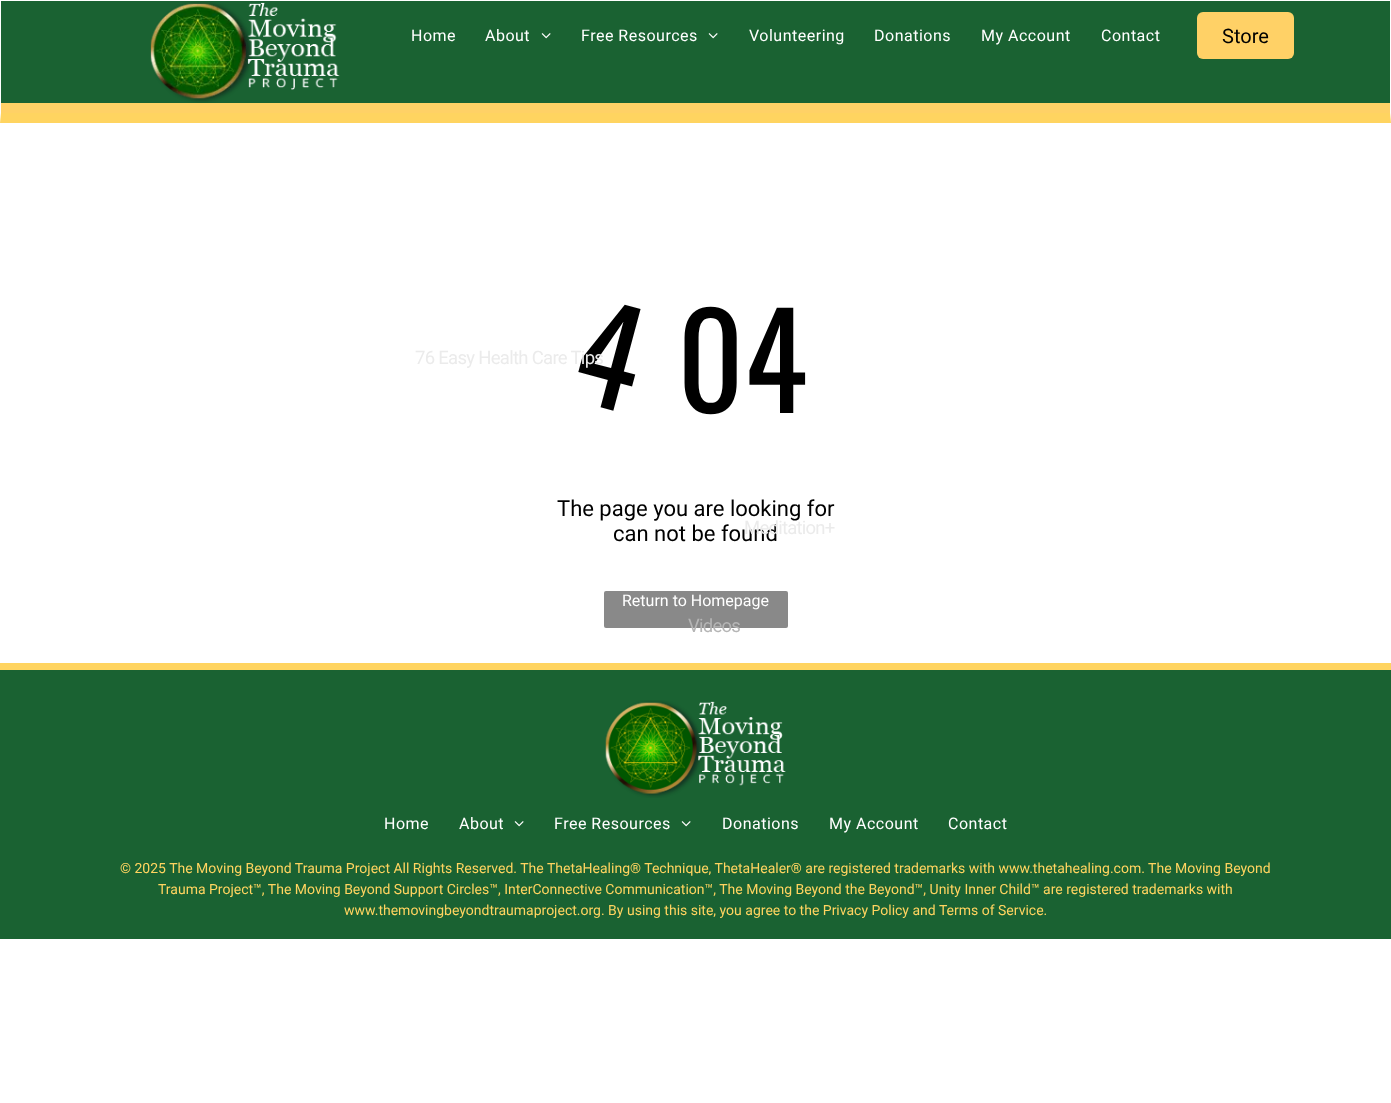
<svg xmlns="http://www.w3.org/2000/svg" width="1391" height="1103" viewBox="0 0 1391 1103">
  <rect width="100%" height="100%" fill="#ffffff"/>
  <path d="M1391 123H0L1 113H1390Z" fill="#ffd460"/>
  <rect x="1" y="1" width="1389" height="102" fill="#1a6232"/>
  <rect x="1" y="103" width="1389" height="10" fill="#ffd166"/>
  <image x="150" y="1" width="190" height="102" href="img1.png"/>
  <text x="411" y="41" font-family="Roboto" font-size="16" letter-spacing="0.5" fill="#ffffff">Home</text>
  <text x="581" y="41" font-family="Roboto" font-size="16" letter-spacing="0.5" fill="#ffffff">Free Resources</text>
  <image x="708" y="33" width="10" height="6" href="img2.png"/>
  <text x="566" y="398" transform="rotate(15 566 398)" font-family="Oswald" font-size="130" fill="#000000">4</text>
  <text x="415" y="364" font-family="Roboto" font-size="18.5" letter-spacing="-0.7" fill="#ebebeb">76 Easy Health Care Tips</text>
  <text x="485" y="41" font-family="Roboto" font-size="16" letter-spacing="0.5" fill="#ffffff">About</text>
  <image x="541" y="33" width="10" height="6" href="img2.png"/>
  <text x="749" y="41" font-family="Roboto" font-size="16" letter-spacing="0.5" fill="#ffffff">Volunteering</text>
  <text x="874" y="41" font-family="Roboto" font-size="16" letter-spacing="0.5" fill="#ffffff">Donations</text>
  <text x="981" y="41" font-family="Roboto" font-size="16" letter-spacing="0.5" fill="#ffffff">My Account</text>
  <text x="1101" y="41" font-family="Roboto" font-size="16" letter-spacing="0.5" fill="#ffffff">Contact</text>
  <rect x="1197" y="12" width="97" height="47" rx="6" fill="#ffd166"/>
  <text x="1222" y="43" font-family="Roboto" font-size="20" fill="#000000">Store</text>
  <text x="677" y="413" font-family="Oswald" font-size="130" fill="#000000">04</text>
  <text x="557" y="516" font-family="Roboto" font-size="22" fill="#000000">The page you are looking for</text>
  <text x="613" y="541" font-family="Roboto" font-size="22" fill="#000000">can not be found</text>
  <rect x="604" y="591" width="184" height="37" rx="2" fill="#898989"/>
  <text x="622" y="606" font-family="Roboto" font-size="16" fill="#ffffff">Return to Homepage</text>
  <rect x="0" y="670" width="1391" height="269" fill="#1a6232"/>
  <rect x="0" y="663" width="1391" height="7" fill="#ffd460"/>
  <text x="384" y="829" font-family="Roboto" font-size="16" letter-spacing="0.5" fill="#ffffff">Home</text>
  <text x="459" y="829" font-family="Roboto" font-size="16" letter-spacing="0.5" fill="#ffffff">About</text>
  <image x="514" y="821" width="10" height="6" href="img2.png"/>
  <text x="744" y="534" font-family="Roboto" font-size="18.5" letter-spacing="-0.75" fill="#ebebeb">Meditation+</text>
  <text x="688" y="632" font-family="Roboto" font-size="18.5" letter-spacing="-0.75" fill="#b5b5b5">Videos</text>
  <text x="554" y="829" font-family="Roboto" font-size="16" letter-spacing="0.5" fill="#ffffff">Free Resources</text>
  <image x="681" y="821" width="10" height="6" href="img2.png"/>
  <text x="722" y="829" font-family="Roboto" font-size="16" letter-spacing="0.5" fill="#ffffff">Donations</text>
  <text x="829" y="829" font-family="Roboto" font-size="16" letter-spacing="0.5" fill="#ffffff">My Account</text>
  <text x="948" y="829" font-family="Roboto" font-size="16" letter-spacing="0.5" fill="#ffffff">Contact</text>
  <image x="605" y="700" width="181" height="98" href="img3.png"/>
  <text x="120" y="873" font-family="Roboto" font-size="14" fill="#ffd460">© 2025 The Moving Beyond Trauma Project All Rights Reserved. The ThetaHealing® Technique, ThetaHealer® are registered trademarks with www.thetahealing.com. The Moving Beyond</text>
  <text x="158" y="894" font-family="Roboto" font-size="14" fill="#ffd460">Trauma Project™, The Moving Beyond Support Circles™, InterConnective Communication™, The Moving Beyond the Beyond™, Unity Inner Child™ are registered trademarks with</text>
  <text x="344" y="915" font-family="Roboto" font-size="14" fill="#ffd460">www.themovingbeyondtraumaproject.org. By using this site, you agree to the Privacy Policy and Terms of Service.</text>
</svg>
